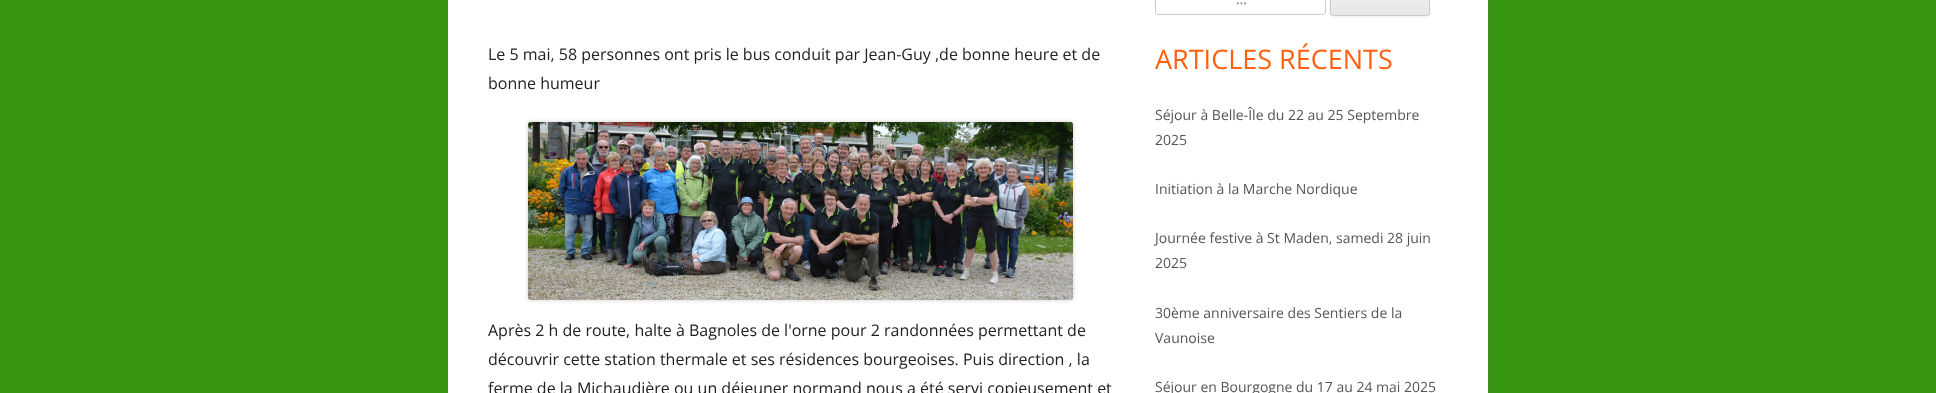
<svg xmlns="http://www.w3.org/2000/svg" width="1936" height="393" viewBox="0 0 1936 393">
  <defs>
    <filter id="blur1" x="-50%" y="-200%" width="200%" height="500%"><feGaussianBlur stdDeviation="3"/></filter>
    <filter id="blur2" x="-50%" y="-200%" width="200%" height="500%"><feGaussianBlur stdDeviation="2"/></filter>
    <filter id="blur3" x="-50%" y="-200%" width="200%" height="500%"><feGaussianBlur stdDeviation="1"/></filter>
    <clipPath id="clip1"><rect x="1330" y="-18" width="100" height="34" rx="3"/></clipPath>
    <linearGradient id="g1" gradientUnits="userSpaceOnUse" x1="1380" y1="-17" x2="1380" y2="15"><stop offset="0" stop-color="#f4f4f4"/><stop offset="1" stop-color="#e6e6e6"/></linearGradient>
  </defs>
  <rect width="100%" height="100%" fill="#379610"/>
  <rect x="448" y="-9" width="1040" height="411" fill="#646464" fill-opacity="0.3" filter="url(#blur1)"/>
  <rect x="448" y="0" width="1040" height="393" fill="#ffffff"/>
  <text x="488" y="60" font-family="Open Sans" font-size="16" fill="#222222">Le 5 mai, 58 personnes ont pris le bus conduit par Jean-Guy ,de bonne heure et de</text>
  <text x="488" y="89" font-family="Open Sans" font-size="16" fill="#222222">bonne humeur</text>
  <rect x="528" y="122" width="545" height="178" rx="3" fill="#000000" fill-opacity="0.2" filter="url(#blur2)"/>
  <image x="528" y="122" width="545" height="178" href="img1.png"/>
  <text x="488" y="336" font-family="Open Sans" font-size="16" fill="#222222">Après 2 h de route, halte à Bagnoles de l'orne pour 2 randonnées permettant de</text>
  <text x="488" y="365" font-family="Open Sans" font-size="16" fill="#222222">découvrir cette station thermale et ses résidences bourgeoises. Puis direction , la</text>
  <text x="488" y="394" font-family="Open Sans" font-size="16" fill="#222222">ferme de la Michaudière ou un déjeuner normand nous a été servi copieusement et</text>
  <rect x="1155.5" y="-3.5" width="170" height="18" rx="2.5" fill="none" stroke="#cccccc"/>
  <text x="1236" y="4" font-family="Open Sans" font-size="14" fill="#757575">…</text>
  <rect x="1330" y="-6" width="100" height="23" rx="3" fill="#404040" fill-opacity="0.1" filter="url(#blur3)"/>
  <g clip-path="url(#clip1)">
    <rect x="1330" y="0" width="100" height="15" fill="url(#g1)"/>
  </g>
  <rect x="1330.5" y="-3.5" width="99" height="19" rx="2.5" fill="none" stroke="#cccccc"/>
  <text x="1155" y="69" font-family="Open Sans" font-size="27" fill="#ff6111">ARTICLES RÉCENTS</text>
  <text x="1155" y="120" font-family="Open Sans" font-size="14" fill="#555555">Séjour à Belle-Île du 22 au 25 Septembre</text>
  <text x="1155" y="145" font-family="Open Sans" font-size="14" fill="#555555">2025</text>
  <text x="1155" y="194" font-family="Open Sans" font-size="14" fill="#555555">Initiation à la Marche Nordique</text>
  <text x="1155" y="243" font-family="Open Sans" font-size="14" fill="#555555">Journée festive à St Maden, samedi 28 juin</text>
  <text x="1155" y="268" font-family="Open Sans" font-size="14" fill="#555555">2025</text>
  <text x="1155" y="318" font-family="Open Sans" font-size="14" fill="#555555">30ème anniversaire des Sentiers de la</text>
  <text x="1155" y="343" font-family="Open Sans" font-size="14" fill="#555555">Vaunoise</text>
  <text x="1155" y="392" font-family="Open Sans" font-size="14" fill="#555555">Séjour en Bourgogne du 17 au 24 mai 2025</text>
</svg>
